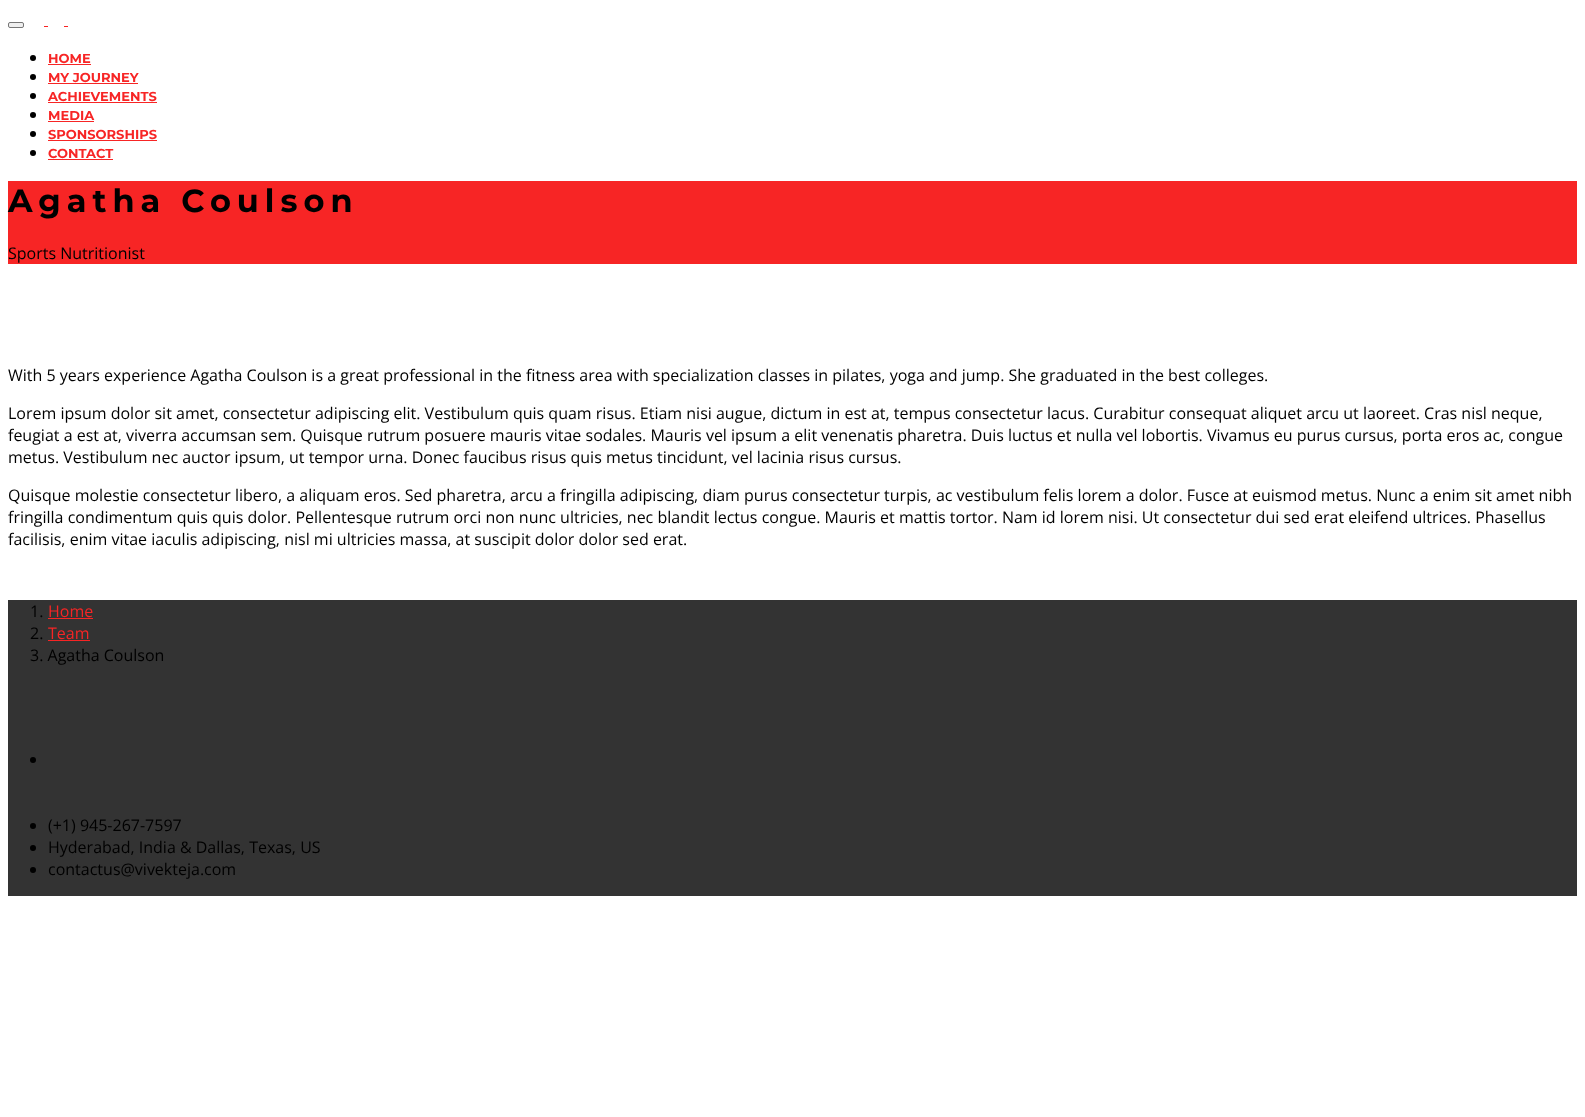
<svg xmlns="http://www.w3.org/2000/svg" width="1585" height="1117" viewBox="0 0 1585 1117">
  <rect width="100%" height="100%" fill="#ffffff"/>
  <rect x="8.5" y="22.5" width="15" height="5" rx="1.5" fill="#efefef" stroke="#767676"/>
  <rect x="44" y="26" width="4" height="1" fill="#f72525"/>
  <rect x="64" y="26" width="4" height="1" fill="#f72525"/>
  <circle cx="33" cy="58" r="3" fill="#000000"/>
  <text x="48" y="63" font-family="Montserrat" font-size="13" font-weight="100" fill="#f72525">HOME</text>
  <rect x="48" y="64" width="43" height="1" fill="#f72525"/>
  <circle cx="33" cy="77" r="3" fill="#000000"/>
  <text x="48" y="82" font-family="Montserrat" font-size="13" font-weight="100" fill="#f72525">MY JOURNEY</text>
  <rect x="48" y="83" width="90" height="1" fill="#f72525"/>
  <circle cx="33" cy="96" r="3" fill="#000000"/>
  <text x="48" y="101" font-family="Montserrat" font-size="13" font-weight="100" fill="#f72525">ACHIEVEMENTS</text>
  <rect x="48" y="102" width="109" height="1" fill="#f72525"/>
  <circle cx="33" cy="115" r="3" fill="#000000"/>
  <text x="48" y="120" font-family="Montserrat" font-size="13" font-weight="100" fill="#f72525">MEDIA</text>
  <rect x="48" y="121" width="46" height="1" fill="#f72525"/>
  <circle cx="33" cy="134" r="3" fill="#000000"/>
  <text x="48" y="139" font-family="Montserrat" font-size="13" font-weight="100" fill="#f72525">SPONSORSHIPS</text>
  <rect x="48" y="140" width="109" height="1" fill="#f72525"/>
  <circle cx="33" cy="153" r="3" fill="#000000"/>
  <text x="48" y="158" font-family="Montserrat" font-size="13" font-weight="100" fill="#f72525">CONTACT</text>
  <rect x="48" y="159" width="65" height="1" fill="#f72525"/>
  <rect x="8" y="181" width="1569" height="83" fill="#f72525"/>
  <text x="8" y="212" font-family="Montserrat" font-size="32" font-weight="100" letter-spacing="6" fill="#000000">Agatha Coulson</text>
  <text x="8" y="259" font-family="Open Sans" font-size="16" fill="#000000">Sports Nutritionist</text>
  <text x="8" y="381" font-family="Open Sans" font-size="16" fill="#000000">With 5 years experience Agatha Coulson is a great professional in the fitness area with specialization classes in pilates, yoga and jump. She graduated in the best colleges.</text>
  <text x="8" y="419" font-family="Open Sans" font-size="16" fill="#000000">Lorem ipsum dolor sit amet, consectetur adipiscing elit. Vestibulum quis quam risus. Etiam nisi augue, dictum in est at, tempus consectetur lacus. Curabitur consequat aliquet arcu ut laoreet. Cras nisl neque,</text>
  <text x="8" y="441" font-family="Open Sans" font-size="16" fill="#000000">feugiat a est at, viverra accumsan sem. Quisque rutrum posuere mauris vitae sodales. Mauris vel ipsum a elit venenatis pharetra. Duis luctus et nulla vel lobortis. Vivamus eu purus cursus, porta eros ac, congue</text>
  <text x="8" y="463" font-family="Open Sans" font-size="16" fill="#000000">metus. Vestibulum nec auctor ipsum, ut tempor urna. Donec faucibus risus quis metus tincidunt, vel lacinia risus cursus.</text>
  <text x="8" y="501" font-family="Open Sans" font-size="16" fill="#000000">Quisque molestie consectetur libero, a aliquam eros. Sed pharetra, arcu a fringilla adipiscing, diam purus consectetur turpis, ac vestibulum felis lorem a dolor. Fusce at euismod metus. Nunc a enim sit amet nibh</text>
  <text x="8" y="523" font-family="Open Sans" font-size="16" fill="#000000">fringilla condimentum quis quis dolor. Pellentesque rutrum orci non nunc ultricies, nec blandit lectus congue. Mauris et mattis tortor. Nam id lorem nisi. Ut consectetur dui sed erat eleifend ultrices. Phasellus</text>
  <text x="8" y="545" font-family="Open Sans" font-size="16" fill="#000000">facilisis, enim vitae iaculis adipiscing, nisl mi ultricies massa, at suscipit dolor dolor sed erat.</text>
  <rect x="8" y="600" width="1569" height="296" fill="#333333"/>
  <text x="30" y="617" font-family="Open Sans" font-size="16" fill="#000000">1.</text>
  <text x="48" y="617" font-family="Open Sans" font-size="16" fill="#f72525">Home</text>
  <rect x="48" y="618" width="45" height="1" fill="#f72525"/>
  <text x="30" y="639" font-family="Open Sans" font-size="16" fill="#000000">2.</text>
  <text x="48" y="639" font-family="Open Sans" font-size="16" fill="#f72525">Team</text>
  <rect x="48" y="640" width="42" height="1" fill="#f72525"/>
  <text x="30" y="661" font-family="Open Sans" font-size="16" fill="#000000">3. Agatha Coulson</text>
  <circle cx="33" cy="760" r="3" fill="#000000"/>
  <circle cx="33" cy="826" r="3" fill="#000000"/>
  <text x="48" y="831" font-family="Open Sans" font-size="16" fill="#000000">(+1) 945-267-7597</text>
  <circle cx="33" cy="848" r="3" fill="#000000"/>
  <text x="48" y="853" font-family="Open Sans" font-size="16" fill="#000000">Hyderabad, India &amp; Dallas, Texas, US</text>
  <circle cx="33" cy="870" r="3" fill="#000000"/>
  <text x="48" y="875" font-family="Open Sans" font-size="16" fill="#000000">contactus@vivekteja.com</text>
</svg>
